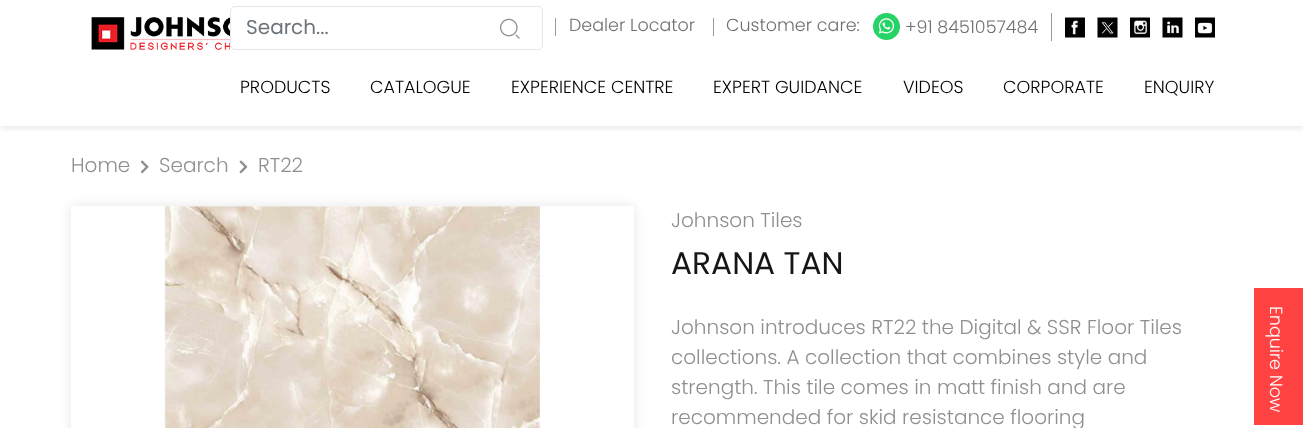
<svg xmlns="http://www.w3.org/2000/svg" width="1303" height="428" viewBox="0 0 1303 428">
  <defs>
    <clipPath id="clip1"><rect x="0" y="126" width="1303" height="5"/></clipPath>
    <filter id="blur1" x="-50%" y="-200%" width="200%" height="500%"><feGaussianBlur stdDeviation="4"/></filter>
    <clipPath id="clip2"><path d="M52 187H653V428H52ZM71 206H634V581H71Z" clip-rule="evenodd"/></clipPath>
    <filter id="blur2" x="-50%" y="-200%" width="200%" height="500%"><feGaussianBlur stdDeviation="6"/></filter>
  </defs>
  <rect width="100%" height="100%" fill="#ffffff"/>
  <g clip-path="url(#clip1)">
    <rect x="0" y="1" width="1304" height="127" fill="#171717" fill-opacity="0.1" filter="url(#blur1)"/>
  </g>
  <image x="91" y="17" width="139" height="33" href="img1.png"/>
  <rect x="230.5" y="6.5" width="312" height="43" rx="4.5" fill="none" stroke="#e6e6e6"/>
  <text x="246" y="34" font-family="Poppins" font-size="20" fill="#6c757d">Search...</text>
  <image x="500" y="18" width="20" height="21" href="img2.png"/>
  <rect x="555" y="18" width="1" height="18" fill="#9b9b9b"/>
  <text x="569" y="31" font-family="Poppins" font-size="17.5" font-weight="300" fill="#707070">Dealer Locator</text>
  <rect x="713" y="18" width="1" height="18" fill="#9b9b9b"/>
  <text x="726" y="31" font-family="Poppins" font-size="17.5" font-weight="300" fill="#707070">Customer care:</text>
  <circle cx="886.5" cy="26.5" r="13.5" fill="#25d366"/>
  <image x="878" y="18" width="17" height="16" href="img3.png"/>
  <text x="905" y="33" font-family="Poppins" font-size="17.5" font-weight="300" fill="#707070">+91 8451057484</text>
  <rect x="1051" y="13" width="1" height="28" fill="#9b9b9b"/>
  <image x="1065" y="17" width="20" height="21" href="img4.png"/>
  <image x="1097" y="17" width="21" height="21" href="img5.png"/>
  <image x="1130" y="17" width="20" height="21" href="img6.png"/>
  <image x="1162" y="17" width="21" height="21" href="img7.png"/>
  <image x="1195" y="17" width="20" height="21" href="img8.png"/>
  <text x="240" y="93" font-family="Poppins" font-size="17.5" font-weight="300" fill="#000000">PRODUCTS</text>
  <text x="370" y="93" font-family="Poppins" font-size="17.5" font-weight="300" fill="#000000">CATALOGUE</text>
  <text x="511" y="93" font-family="Poppins" font-size="17.5" font-weight="300" fill="#000000">EXPERIENCE CENTRE</text>
  <text x="713" y="93" font-family="Poppins" font-size="17.5" font-weight="300" fill="#000000">EXPERT GUIDANCE</text>
  <text x="903" y="93" font-family="Poppins" font-size="17.5" font-weight="300" fill="#000000">VIDEOS</text>
  <text x="1003" y="93" font-family="Poppins" font-size="17.5" font-weight="300" fill="#000000">CORPORATE</text>
  <text x="1144" y="93" font-family="Poppins" font-size="17.5" font-weight="300" fill="#000000">ENQUIRY</text>
  <text x="71" y="172" font-family="Poppins" font-size="20" font-weight="300" fill="#8f8f8f">Home</text>
  <image x="140" y="160" width="9" height="14" href="img9.png"/>
  <text x="159" y="172" font-family="Poppins" font-size="20" font-weight="300" fill="#8f8f8f">Search</text>
  <image x="239" y="160" width="9" height="14" href="img10.png"/>
  <text x="258" y="172" font-family="Poppins" font-size="20" font-weight="300" fill="#8f8f8f">RT22</text>
  <g clip-path="url(#clip2)">
    <rect x="71" y="206" width="563" height="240" fill="#171717" fill-opacity="0.1" filter="url(#blur2)"/>
  </g>
  <image x="164" y="206" width="376" height="222" href="img11.png"/>
  <text x="671" y="227" font-family="Poppins" font-size="20" font-weight="300" fill="#8f8f8f">Johnson Tiles</text>
  <text x="671" y="274" font-family="Poppins" font-size="31.25" fill="#161616">ARANA TAN</text>
  <text x="671" y="334" font-family="Poppins" font-size="20" font-weight="300" fill="#8f8f8f">Johnson introduces RT22 the Digital &amp; SSR Floor Tiles</text>
  <text x="671" y="364" font-family="Poppins" font-size="20" font-weight="300" fill="#8f8f8f">collections. A collection that combines style and</text>
  <text x="671" y="394" font-family="Poppins" font-size="20" font-weight="300" fill="#8f8f8f">strength. This tile comes in matt finish and are</text>
  <text x="671" y="424" font-family="Poppins" font-size="20" font-weight="300" fill="#8f8f8f">recommended for skid resistance flooring</text>
  <rect x="1254" y="288" width="49" height="137" fill="#ff4343"/>
  <text x="1270" y="306" transform="rotate(90 1270 306)" font-family="Poppins" font-size="17.5" font-weight="300" fill="#ffffff">Enquire Now</text>
</svg>
